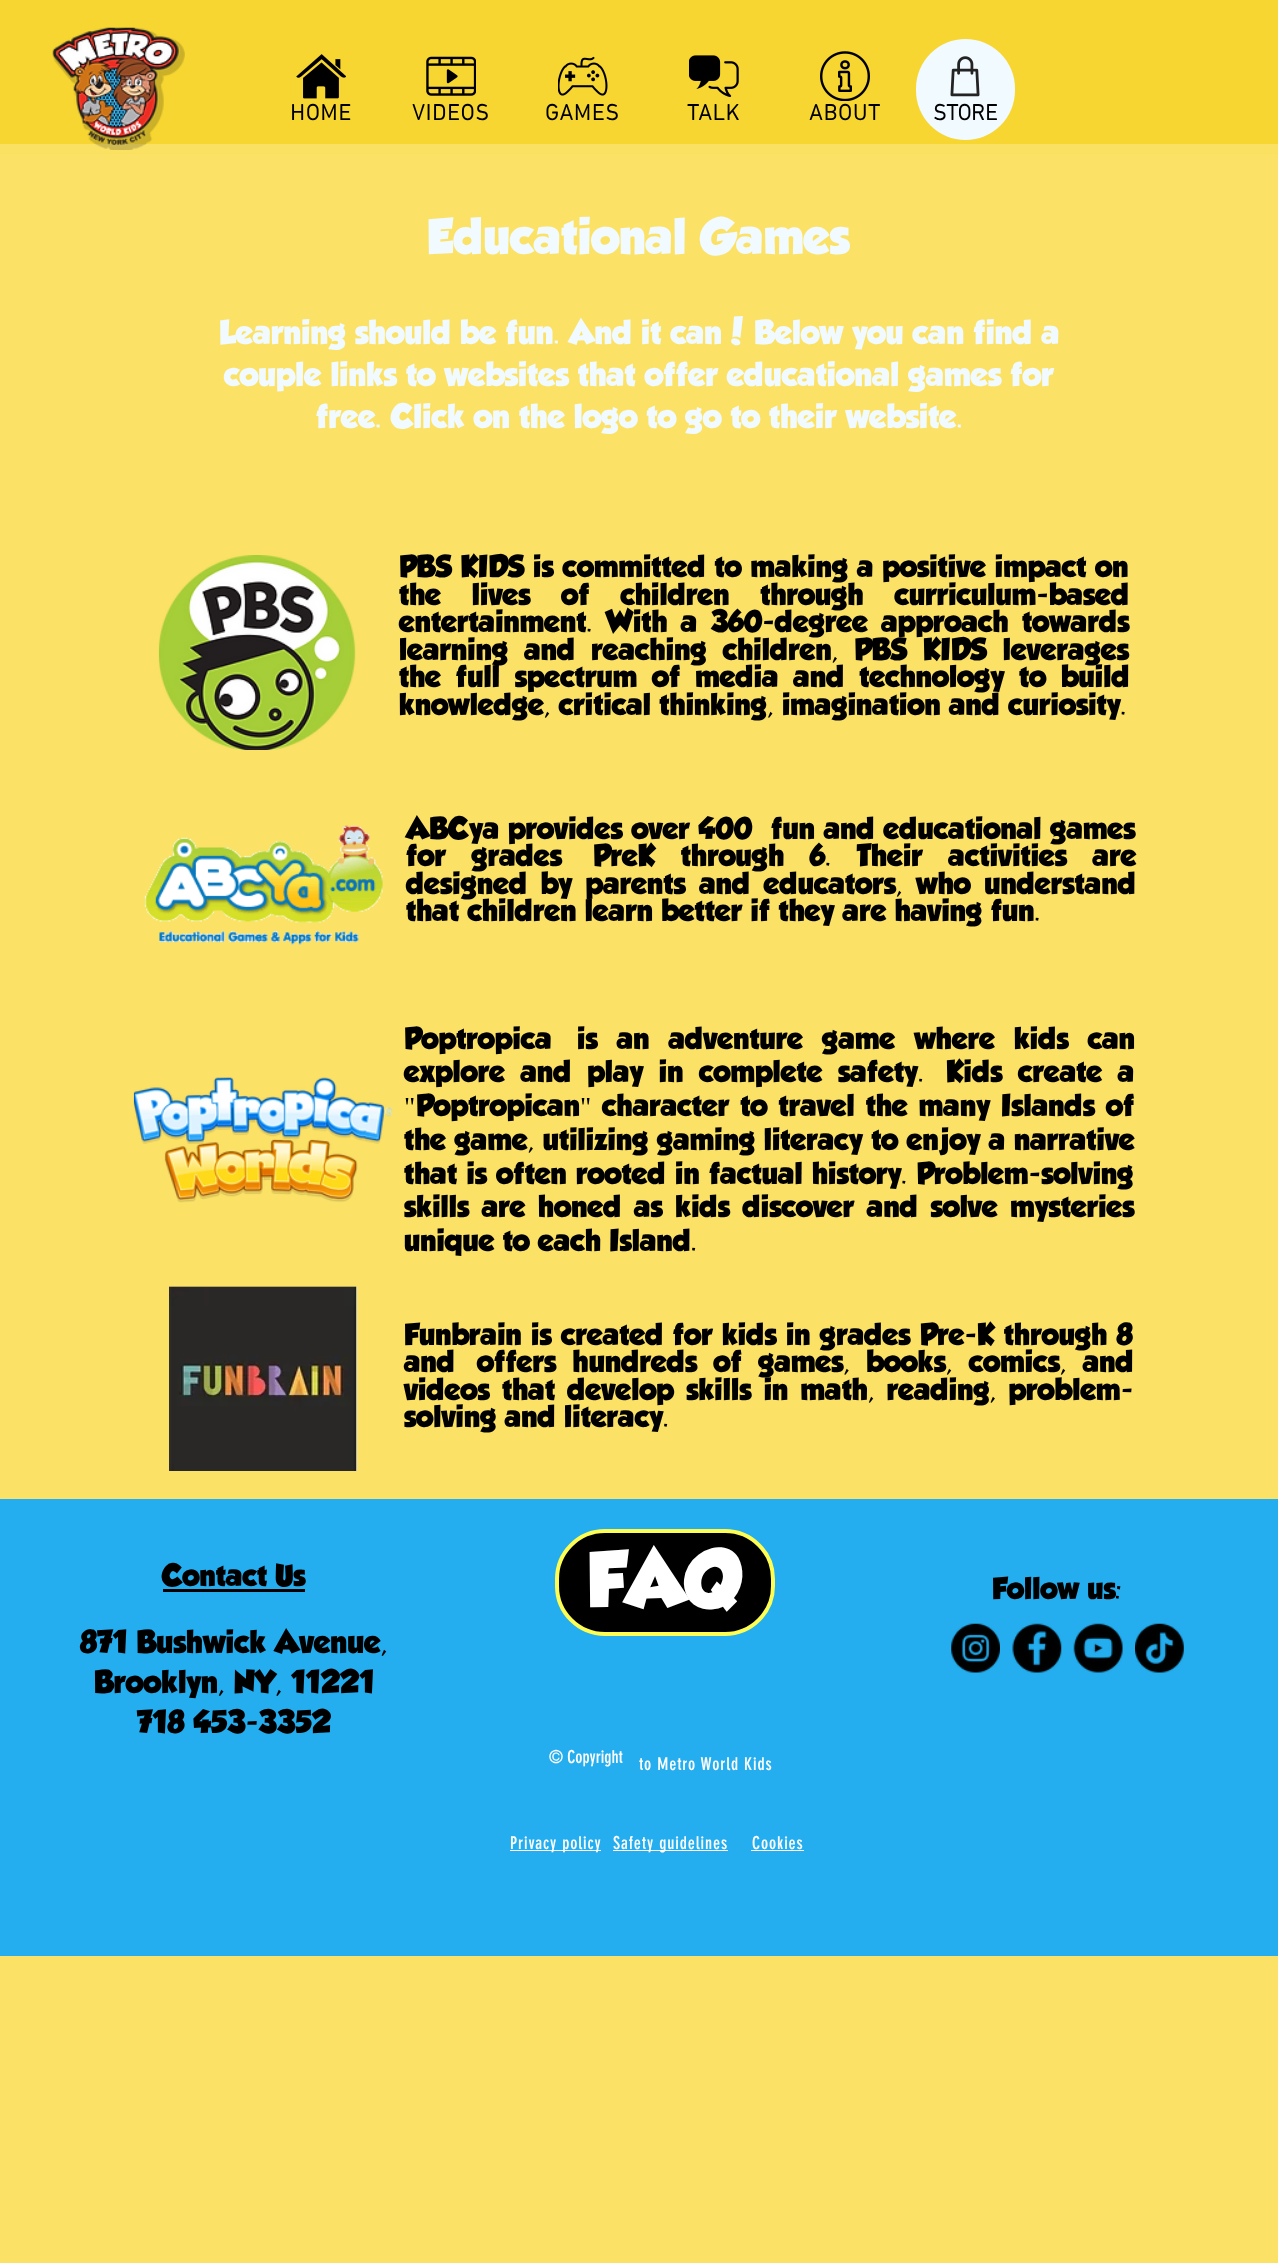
<svg xmlns="http://www.w3.org/2000/svg" width="1278" height="2263" viewBox="0 0 1278 2263">
  <rect width="100%" height="100%" fill="#fbe267"/>
  <rect x="0" y="0" width="1278" height="144" fill="#f7d631"/>
  <rect x="0" y="144" width="1278" height="10" fill="#fbdd4a"/>
  <image x="0" y="144" width="1278" height="10" href="img8.png"/>
  <image x="52" y="27" width="133" height="123" href="img1.png"/>
  <image x="296" y="54" width="50" height="45" href="img2.png"/>
  <text x="290" y="120" font-family="'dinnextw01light'" font-size="22.5" font-weight="bold" letter-spacing="1" fill="#000000">HOME</text>
  <image x="426" y="56" width="50" height="40" href="img3.png"/>
  <text x="412" y="120" font-family="'dinnextw01light'" font-size="22.5" font-weight="bold" letter-spacing="1" fill="#000000">VIDEOS</text>
  <image x="558" y="56" width="50" height="40" href="img4.png"/>
  <text x="545" y="120" font-family="'dinnextw01light'" font-size="22.5" font-weight="bold" letter-spacing="1" fill="#000000">GAMES</text>
  <image x="689" y="55" width="50" height="42" href="img5.png"/>
  <text x="687" y="120" font-family="'dinnextw01light'" font-size="22.5" font-weight="bold" letter-spacing="1" fill="#000000">TALK</text>
  <image x="820" y="51" width="50" height="50" href="img6.png"/>
  <text x="809" y="120" font-family="'dinnextw01light'" font-size="22.5" font-weight="bold" letter-spacing="1" fill="#000000">ABOUT</text>
  <rect x="916" y="39" width="99" height="101" rx="49.5" fill="#f0faff"/>
  <image x="950" y="56" width="30" height="41" href="img7.png"/>
  <text x="933" y="120" font-family="'dinnextw01light'" font-size="22.5" font-weight="bold" fill="#000000">STORE</text>
  <text x="427" y="254" font-family="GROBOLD" font-size="45" font-weight="bold" fill="#f0faff">Educational Games</text>
  <text x="219" y="344" font-family="GROBOLD" font-size="30" font-weight="bold" fill="#f0faff">Learning should be fun. And it can! Below you can find a</text>
  <text x="224" y="386" font-family="GROBOLD" font-size="30" font-weight="bold" fill="#f0faff">couple links to websites that offer educational games for</text>
  <text x="316" y="428" font-family="GROBOLD" font-size="30" font-weight="bold" fill="#f0faff">free. Click on the logo to go to their website.</text>
  <image x="158" y="555" width="198" height="195" href="img9.png"/>
  <text x="399" y="577" word-spacing="0.5" font-family="GROBOLD" font-size="27.5" font-weight="bold" fill="#000000">PBS KIDS is committed to making a positive impact on</text>
  <text x="399" y="605" word-spacing="22.5" font-family="GROBOLD" font-size="27.5" font-weight="bold" fill="#000000">the lives of children through curriculum-based</text>
  <text x="399" y="632" word-spacing="5" font-family="GROBOLD" font-size="27.5" font-weight="bold" fill="#000000">entertainment. With a 360-degree approach towards</text>
  <text x="399" y="660" word-spacing="7.75" font-family="GROBOLD" font-size="27.5" font-weight="bold" fill="#000000">learning and reaching children, PBS KIDS leverages</text>
  <text x="399" y="687" word-spacing="6.5" font-family="GROBOLD" font-size="27.5" font-weight="bold" fill="#000000">the full spectrum of media and technology to build</text>
  <text x="399" y="715" font-family="GROBOLD" font-size="27.5" font-weight="bold" fill="#000000">knowledge, critical thinking, imagination and curiosity.</text>
  <image x="144" y="825" width="239" height="120" href="img10.png"/>
  <text x="406" y="839" word-spacing="0.5" font-family="GROBOLD" font-size="27.5" font-weight="bold" fill="#000000">ABCya provides over 400</text>
  <text x="771" y="839" word-spacing="0.5" font-family="GROBOLD" font-size="27.5" font-weight="bold" fill="#000000">fun and educational games</text>
  <text x="406" y="866" word-spacing="17.25" font-family="GROBOLD" font-size="27.5" font-weight="bold" fill="#000000">for grades</text>
  <text x="593" y="866" word-spacing="17.25" font-family="GROBOLD" font-size="27.5" font-weight="bold" fill="#000000">PreK through 6. Their activities are</text>
  <text x="406" y="894" word-spacing="5.25" font-family="GROBOLD" font-size="27.5" font-weight="bold" fill="#000000">designed by parents and educators, who understand</text>
  <text x="406" y="921" font-family="GROBOLD" font-size="27.5" font-weight="bold" fill="#000000">that children learn better if they are having fun.</text>
  <image x="133" y="1077" width="260" height="126" href="img11.png"/>
  <text x="404" y="1049" word-spacing="10.75" font-family="GROBOLD" font-size="27.5" font-weight="bold" fill="#000000">Poptropica</text>
  <text x="577" y="1049" word-spacing="10.75" font-family="GROBOLD" font-size="27.5" font-weight="bold" fill="#000000">is an adventure game where kids can</text>
  <text x="404" y="1082" word-spacing="7.25" font-family="GROBOLD" font-size="27.5" font-weight="bold" fill="#000000">explore and play in complete safety.</text>
  <text x="946" y="1082" word-spacing="7.25" font-family="GROBOLD" font-size="27.5" font-weight="bold" fill="#000000">Kids create a</text>
  <text x="404" y="1116" font-family="Liberation Serif" font-size="27.5" fill="#000000">"</text>
  <text x="416" y="1116" font-family="GROBOLD" font-size="27.5" font-weight="bold" fill="#000000">Poptropican</text>
  <text x="580" y="1116" font-family="Liberation Serif" font-size="27.5" fill="#000000">"</text>
  <text x="602" y="1116" word-spacing="2.75" font-family="GROBOLD" font-size="27.5" font-weight="bold" fill="#000000">character to travel the many Islands of</text>
  <text x="404" y="1150" word-spacing="0.25" font-family="GROBOLD" font-size="27.5" font-weight="bold" fill="#000000">the game, utilizing gaming literacy to enjoy a narrative</text>
  <text x="404" y="1184" word-spacing="1" font-family="GROBOLD" font-size="27.5" font-weight="bold" fill="#000000">that is often rooted in factual history. Problem-solving</text>
  <text x="404" y="1217" word-spacing="4.25" font-family="GROBOLD" font-size="27.5" font-weight="bold" fill="#000000">skills are honed as kids discover and solve mysteries</text>
  <text x="404" y="1251" font-family="GROBOLD" font-size="27.5" font-weight="bold" fill="#000000">unique to each Island.</text>
  <image x="169" y="1286" width="189" height="185" href="img12.png"/>
  <text x="404" y="1345" word-spacing="1" font-family="GROBOLD" font-size="27.5" font-weight="bold" fill="#000000">Funbrain is created for kids in grades Pre-K through 8</text>
  <text x="404" y="1372" word-spacing="8" font-family="GROBOLD" font-size="27.5" font-weight="bold" fill="#000000">and</text>
  <text x="477" y="1372" word-spacing="8" font-family="GROBOLD" font-size="27.5" font-weight="bold" fill="#000000">offers hundreds of games, books, comics, and</text>
  <text x="404" y="1400" word-spacing="4" font-family="GROBOLD" font-size="27.5" font-weight="bold" fill="#000000">videos that develop skills in math, reading, problem-</text>
  <text x="404" y="1427" font-family="GROBOLD" font-size="27.5" font-weight="bold" fill="#000000">solving and literacy.</text>
  <rect x="0" y="1499" width="1278" height="457" fill="#24aeef"/>
  <rect x="557" y="1531" width="216" height="103" rx="48" fill="#000000" stroke="#fdfd54" stroke-width="4"/>
  <text x="162" y="1586" font-family="GROBOLD" font-size="27.5" font-weight="bold" fill="#000000">Contact Us</text>
  <rect x="163" y="1589" width="142" height="3" fill="#000000"/>
  <text x="587" y="1607" font-family="GROBOLD" font-size="71" font-weight="bold" fill="#ffffff">FAQ</text>
  <text x="992" y="1599" font-family="GROBOLD" font-size="27.5" font-weight="bold" fill="#000000">Follow us:</text>
  <image x="951" y="1623" width="49" height="50" href="img13.png"/>
  <image x="1012" y="1623" width="50" height="50" href="img14.png"/>
  <image x="1073" y="1623" width="50" height="50" href="img15.png"/>
  <image x="1135" y="1623" width="49" height="50" href="img16.png"/>
  <text x="80" y="1653" font-family="GROBOLD" font-size="28.75" font-weight="bold" fill="#000000">871 Bushwick Avenue,</text>
  <text x="94" y="1693" font-family="GROBOLD" font-size="28.75" font-weight="bold" fill="#000000">Brooklyn, NY, 11221</text>
  <text x="137" y="1733" font-family="GROBOLD" font-size="28.75" font-weight="bold" fill="#000000">718 453-3352</text>
  <text x="549" y="1763" font-family="'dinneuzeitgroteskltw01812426'" font-size="17.5" fill="#ffffff">© Copyright</text>
  <text x="639" y="1770" font-family="'dinneuzeitgroteskltw01812426'" font-size="17.5" letter-spacing="0.9" fill="#ffffff">to Metro World Kids</text>
  <rect x="510" y="1850" width="91" height="1" fill="#ffffff"/>
  <text x="510" y="1849" font-family="'dinneuzeitgroteskltw01812426'" font-size="17.5" letter-spacing="0.9" fill="#ffffff">Privacy policy</text>
  <rect x="613" y="1850" width="115" height="1" fill="#ffffff"/>
  <text x="613" y="1849" font-family="'dinneuzeitgroteskltw01812426'" font-size="17.5" letter-spacing="0.9" fill="#ffffff">Safety guidelines</text>
  <text x="752" y="1849" font-family="'dinneuzeitgroteskltw01812426'" font-size="17.5" letter-spacing="0.9" fill="#ffffff">Cookies</text>
  <rect x="751" y="1850" width="53" height="1" fill="#ffffff"/>
</svg>
